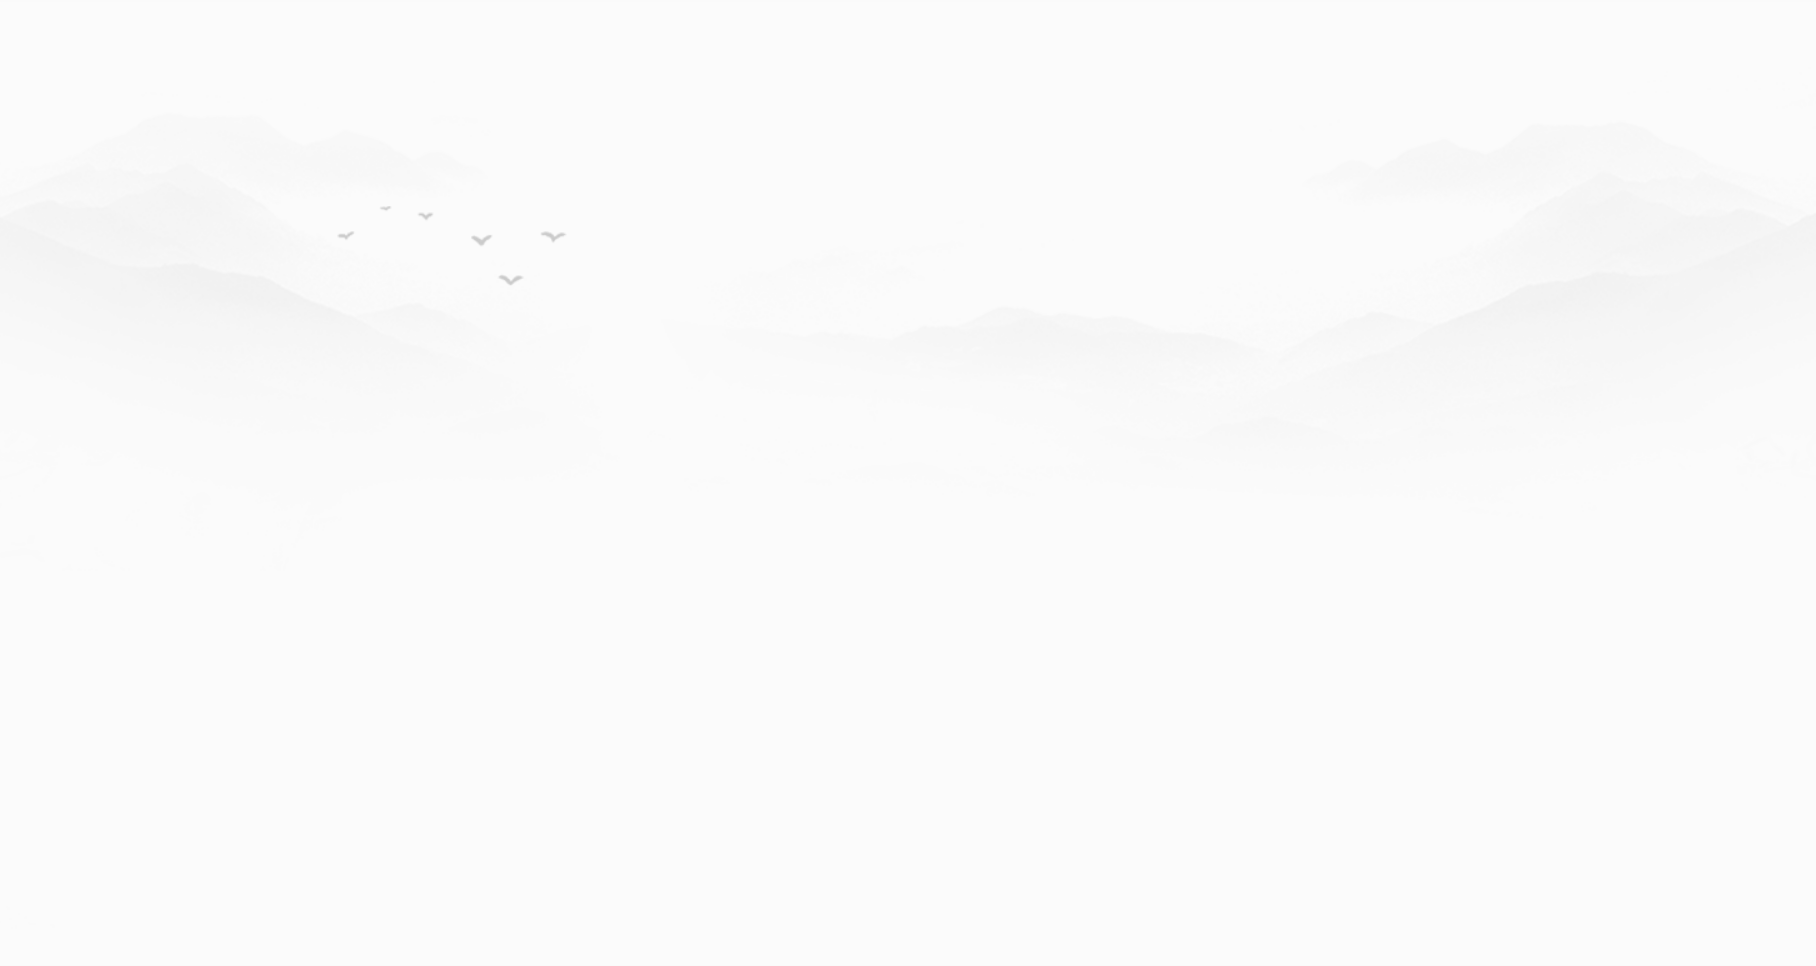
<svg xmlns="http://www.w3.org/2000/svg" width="1816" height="966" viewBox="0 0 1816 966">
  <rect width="100%" height="100%" fill="#ffffff"/>
  <image x="0" y="0" width="1816" height="966" href="img1.png"/>
  <image x="337" y="206" width="230" height="80" href="img2.png"/>
</svg>
